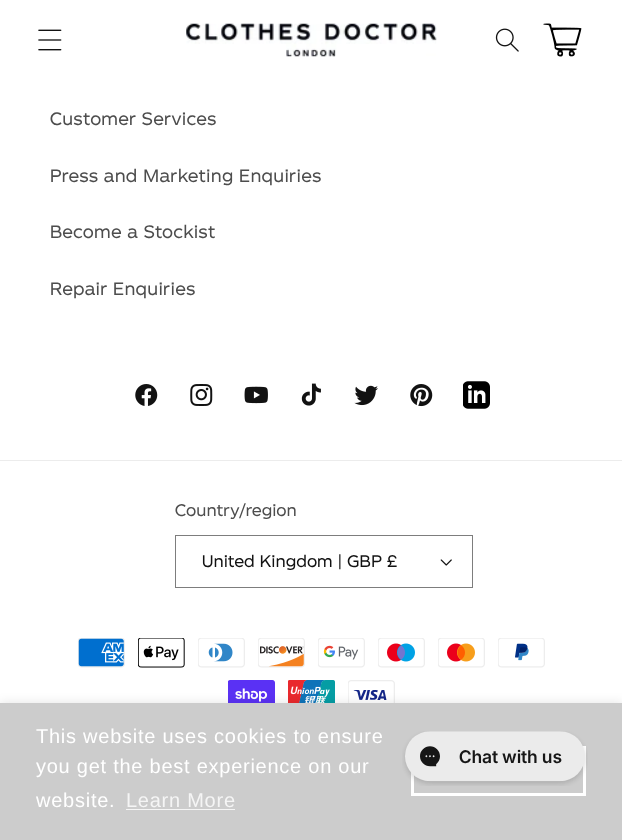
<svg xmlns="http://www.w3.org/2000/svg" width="622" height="840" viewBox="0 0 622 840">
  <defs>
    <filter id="blur1" x="-50%" y="-200%" width="200%" height="500%"><feGaussianBlur stdDeviation="6"/></filter>
  </defs>
  <rect width="100%" height="100%" fill="#ffffff"/>
  <image x="38" y="29" width="24" height="22" href="img1.png"/>
  <image x="186" y="23" width="251" height="34" href="img2.png"/>
  <image x="495" y="28" width="24" height="24" href="img3.png"/>
  <image x="543" y="23" width="39" height="34" href="img4.png"/>
  <text x="50" y="125" font-family="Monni" font-size="17.5" letter-spacing="0.75" fill="#4d4d4d">Customer Services</text>
  <text x="50" y="182" font-family="Monni" font-size="17.5" letter-spacing="0.75" fill="#4d4d4d">Press and Marketing Enquiries</text>
  <text x="50" y="238" font-family="Monni" font-size="17.5" letter-spacing="0.75" fill="#4d4d4d">Become a Stockist</text>
  <text x="50" y="295" font-family="Monni" font-size="17.5" letter-spacing="0.75" fill="#4d4d4d">Repair Enquiries</text>
  <image x="135" y="384" width="23" height="22" href="img5.png"/>
  <image x="190" y="384" width="23" height="22" href="img6.png"/>
  <image x="244" y="386" width="24" height="18" href="img7.png"/>
  <image x="301" y="383" width="20" height="23" href="img8.png"/>
  <image x="354" y="385" width="24" height="21" href="img9.png"/>
  <image x="410" y="384" width="23" height="23" href="img10.png"/>
  <image x="463" y="381" width="27" height="28" href="img11.png"/>
  <rect x="0" y="460" width="622" height="1" fill="#ececec"/>
  <text x="175" y="516" font-family="Monni" font-size="16.25" letter-spacing="0.5" fill="#4d4d4d">Country/region</text>
  <image x="440" y="559" width="12" height="7" href="img12.png"/>
  <rect x="175.5" y="535.5" width="297" height="52" fill="none" stroke="#7d7d7d"/>
  <text x="202" y="567" font-family="Monni" font-size="16.25" letter-spacing="0.5" fill="#121212">United Kingdom | GBP £</text>
  <image x="78" y="638" width="47" height="30" href="img13.png"/>
  <image x="138" y="638" width="47" height="30" href="img14.png"/>
  <image x="198" y="638" width="47" height="30" href="img15.png"/>
  <image x="258" y="638" width="47" height="30" href="img16.png"/>
  <image x="318" y="638" width="47" height="30" href="img17.png"/>
  <image x="378" y="638" width="47" height="30" href="img18.png"/>
  <image x="438" y="638" width="47" height="30" href="img19.png"/>
  <image x="498" y="638" width="47" height="30" href="img20.png"/>
  <image x="228" y="680" width="47" height="23" href="img21.png"/>
  <image x="288" y="680" width="47" height="23" href="img22.png"/>
  <image x="348" y="680" width="47" height="23" href="img23.png"/>
  <rect x="0" y="704" width="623" height="136" fill="#000000" fill-opacity="0.13" filter="url(#blur1)"/>
  <rect x="0" y="703" width="622" height="137" fill="#cccccc"/>
  <text x="36" y="743" font-family="Liberation Sans" font-size="20" letter-spacing="0.75" fill="#ffffff">This website uses cookies to ensure</text>
  <text x="36" y="773" font-family="Liberation Sans" font-size="20" letter-spacing="0.75" fill="#ffffff">you get the best experience on our</text>
  <text x="36" y="807" font-family="Liberation Sans" font-size="20" letter-spacing="0.75" fill="#ffffff">website.</text>
  <text x="126" y="807" font-family="Liberation Sans" font-size="20" letter-spacing="0.75" fill="#f5f5f5">Learn More</text>
  <rect x="126" y="809" width="109" height="1" fill="#f5f5f5"/>
  <rect x="412.5" y="747.5" width="172" height="47" fill="none" stroke="#ffffff" stroke-width="3"/>
  <image x="402" y="731" width="186" height="55" href="img24.png"/>
</svg>
